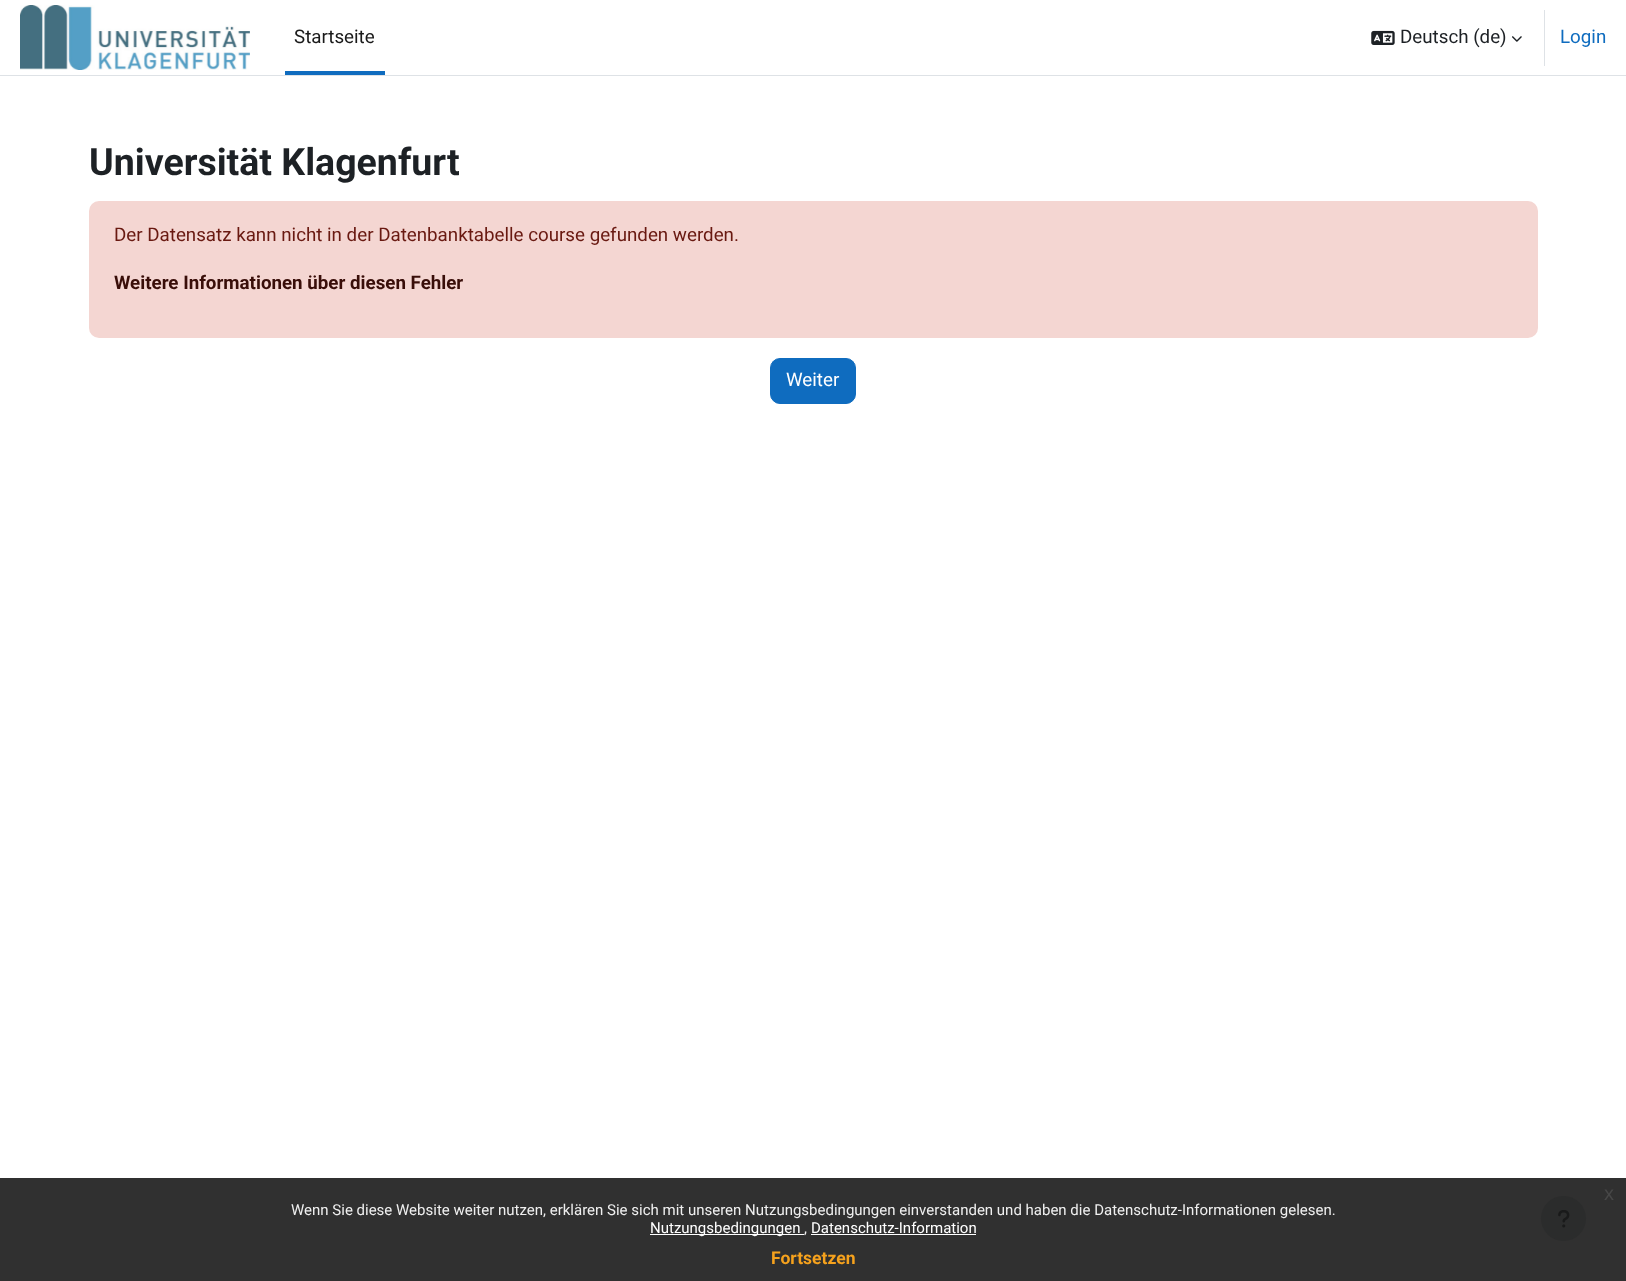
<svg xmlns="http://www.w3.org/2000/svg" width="1626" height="1281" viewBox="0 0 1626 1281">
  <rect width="100%" height="100%" fill="#ffffff"/>
  <rect x="0" y="1178" width="1626" height="103" fill="#303030"/>
  <rect x="0" y="75" width="1626" height="1" fill="#dee2e6"/>
  <image x="20" y="5" width="230" height="65" href="img1.png"/>
  <rect x="285" y="71" width="100" height="4" fill="#0f6cbf"/>
  <text x="294" y="43" font-family="Roboto" font-size="18.75" fill="#1a1a1a">Startseite</text>
  <image x="1371" y="30" width="24" height="15" href="img2.png"/>
  <text x="1400" y="43" font-family="Roboto" font-size="18.75" fill="#1d2125">Deutsch (de)</text>
  <image x="1512" y="36" width="10" height="6" href="img3.png"/>
  <rect x="1544" y="10" width="1" height="56" fill="#dee2e6"/>
  <text x="1560" y="43" font-family="Roboto" font-size="18.75" fill="#0f6cbf">Login</text>
  <text x="89" y="175" font-family="Roboto" font-size="37.5" font-weight="bold" fill="#1d2125">Universität Klagenfurt</text>
  <rect x="89" y="201" width="1449" height="137" rx="10" fill="#f4d6d2"/>
  <text x="114" y="241" font-family="Roboto" font-size="18.75" fill="#691911">Der Datensatz kann nicht in der Datenbanktabelle course gefunden werden.</text>
  <text x="114" y="289" font-family="Roboto" font-size="18.75" font-weight="bold" fill="#390e09">Weitere Informationen über diesen Fehler</text>
  <rect x="770.5" y="358.5" width="85" height="45" rx="9.5" fill="#0f6cbf" stroke="#0f6cbf"/>
  <text x="786" y="386" font-family="Roboto" font-size="18.75" fill="#ffffff">Weiter</text>
  <circle cx="1563.5" cy="1218.5" r="22.5" fill="#2b2c2c"/>
  <image x="1558" y="1210" width="12" height="18" href="img4.png"/>
  <text x="1604" y="1200" font-family="Liberation Sans" font-size="20" fill="#474747">x</text>
  <text x="291" y="1215" font-family="Roboto" font-size="15" fill="#efefef">Wenn Sie diese Website weiter nutzen, erklären Sie sich mit unseren Nutzungsbedingungen einverstanden und haben die Datenschutz-Informationen gelesen.</text>
  <rect x="650" y="1234" width="154" height="1" fill="#ffffff"/>
  <text x="650" y="1233" font-family="Roboto" font-size="15" fill="#ffffff">Nutzungsbedingungen</text>
  <text x="804" y="1233" font-family="Roboto" font-size="15" fill="#efefef">,</text>
  <rect x="811" y="1234" width="165" height="1" fill="#ffffff"/>
  <text x="811" y="1233" font-family="Roboto" font-size="15" fill="#ffffff">Datenschutz-Information</text>
  <text x="771" y="1264" font-family="Roboto" font-size="17.5" font-weight="bold" fill="#f6a21d">Fortsetzen</text>
</svg>
